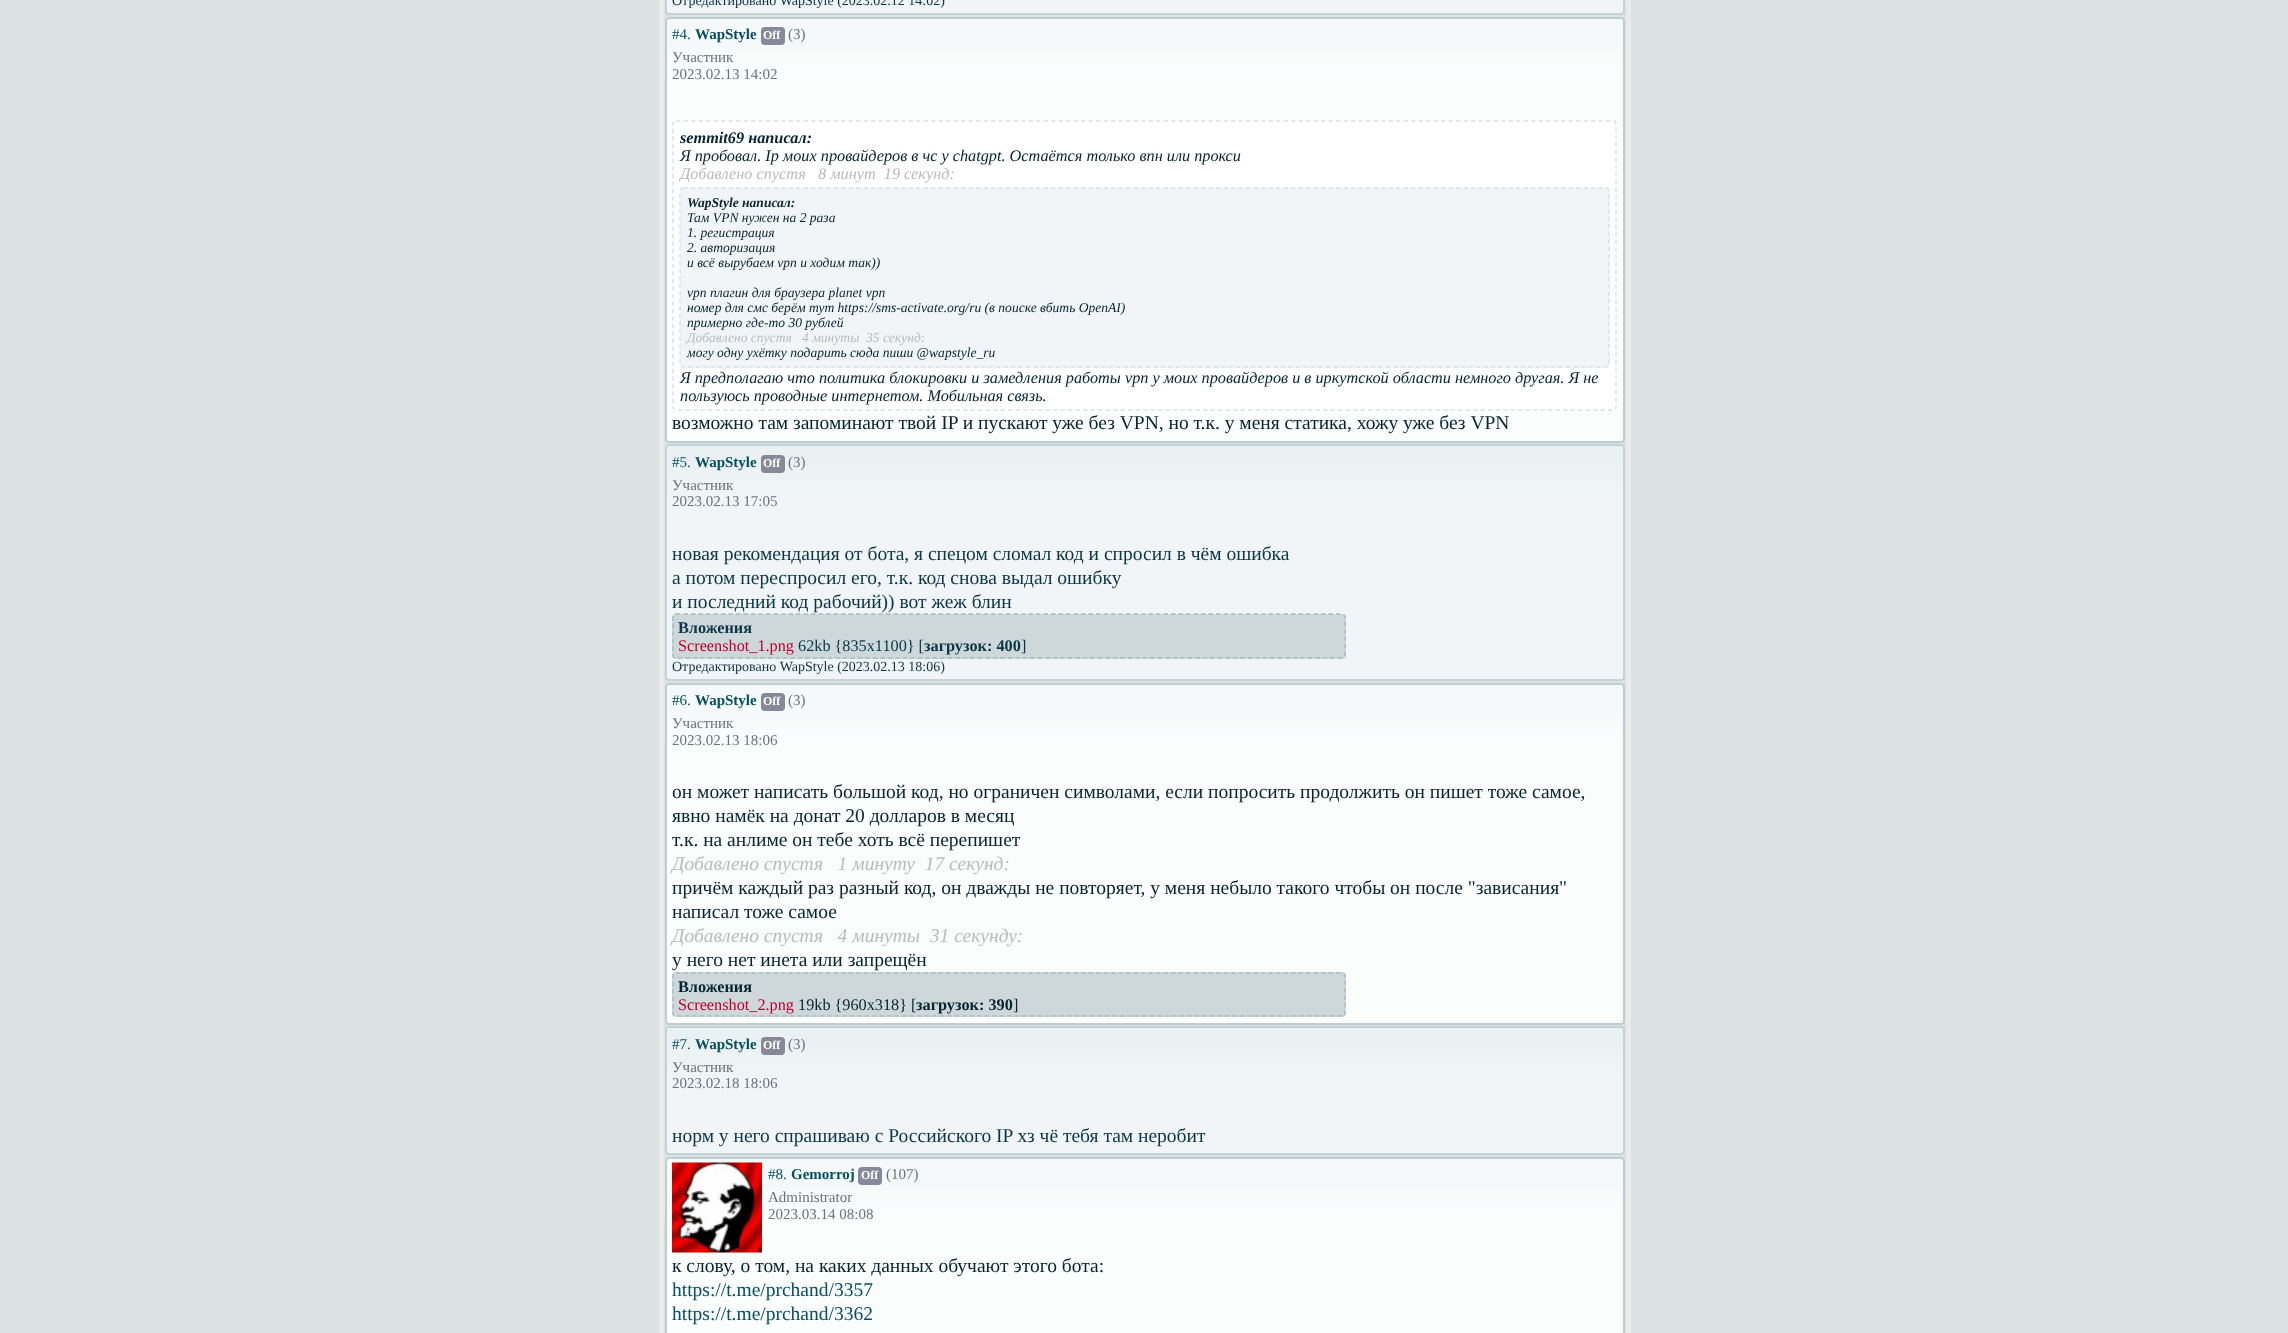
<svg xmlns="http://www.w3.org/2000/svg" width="2288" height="1333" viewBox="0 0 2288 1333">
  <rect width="100%" height="100%" fill="#dce1e2"/>
  <rect x="661.5" y="-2.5" width="967" height="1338" fill="none" stroke="#ebebeb" stroke-width="5"/>
  <rect x="666" y="-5" width="958" height="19" rx="3" fill="#f2f5f7" stroke="#c4d2d9" stroke-width="2"/>
  <text x="672" y="5" font-family="Liberation Serif" font-size="14" fill="#0a3647">Отредактировано WapStyle (2023.02.12 14:02)</text>
  <rect x="665" y="17" width="960" height="426" rx="4" fill="#fbfdfd"/>
  <image x="664" y="18" width="960" height="60" href="img1.png"/>
  <rect x="666" y="18" width="958" height="424" rx="3" fill="none" stroke="#bdced2" stroke-width="2"/>
  <text x="672" y="39" font-family="Liberation Serif" font-size="15" fill="#054f61">#4.</text>
  <text x="695" y="39" font-family="Liberation Serif" font-size="15" font-weight="bold" fill="#054f61">WapStyle</text>
  <rect x="761" y="27" width="24" height="18" rx="4" fill="#888899"/>
  <text x="763" y="39" font-family="Liberation Serif" font-size="12" font-weight="bold" fill="#ffffff">Off</text>
  <text x="788" y="39" font-family="Liberation Serif" font-size="15" fill="#697378">(3)</text>
  <text x="672" y="62" font-family="Liberation Serif" font-size="15" fill="#697378">Участник</text>
  <text x="672" y="79" font-family="Liberation Serif" font-size="15" fill="#697378">2023.02.13 14:02</text>
  <rect x="672" y="120" width="945" height="291" rx="4" fill="#ffffff"/>
  <path d="M676 121H1613C1615 121 1616 122 1616 124V407C1616 409 1615 410 1613 410H676C674 410 673 409 673 407V124C673 122 674 121 676 121Z" fill="none" stroke="#dce1e2" stroke-width="1.5" stroke-dasharray="4.5 3"/>
  <text x="680" y="143" font-family="Liberation Serif" font-size="16.25" font-weight="bold" font-style="italic" fill="#06242f">semmit69 написал:</text>
  <text x="680" y="161" font-family="Liberation Serif" font-size="16.25" font-style="italic" fill="#06242f">Я пробовал. Ip моих провайдеров в чс у chatgpt. Остаётся только впн или прокси</text>
  <text x="680" y="179" font-family="Liberation Serif" font-size="16.25" font-style="italic" fill="#bbbbbb" xml:space="preserve">Добавлено спустя   8 минут  19 секунд:</text>
  <rect x="680" y="188" width="930" height="180" rx="4" fill="#f2f5f7"/>
  <path d="M683.5 188H1605.5C1607.5 188 1609 189.5 1609 191.5V363.5C1609 365.5 1607.5 367 1605.5 367H683.5C681.5 367 680 365.5 680 363.5V191.5C680 189.5 681.5 188 683.5 188Z" fill="none" stroke="#dce1e2" stroke-width="1.5" stroke-dasharray="4.5 3"/>
  <text x="687" y="207" font-family="Liberation Serif" font-size="13.55" font-weight="bold" font-style="italic" fill="#06242f">WapStyle написал:</text>
  <text x="687" y="222" font-family="Liberation Serif" font-size="13.55" font-style="italic" fill="#06242f">Там VPN нужен на 2 раза</text>
  <text x="687" y="237" font-family="Liberation Serif" font-size="13.55" font-style="italic" fill="#06242f">1. регистрация</text>
  <text x="687" y="252" font-family="Liberation Serif" font-size="13.55" font-style="italic" fill="#06242f">2. авторизация</text>
  <text x="687" y="267" font-family="Liberation Serif" font-size="13.55" font-style="italic" fill="#06242f">и всё вырубаем vpn и ходим так))</text>
  <text x="687" y="297" font-family="Liberation Serif" font-size="13.55" font-style="italic" fill="#06242f">vpn плагин для браузера planet vpn</text>
  <text x="687" y="312" font-family="Liberation Serif" font-size="13.55" font-style="italic" fill="#06242f">номер для смс берём тут https://sms-activate.org/ru (в поиске вбить OpenAI)</text>
  <text x="687" y="327" font-family="Liberation Serif" font-size="13.55" font-style="italic" fill="#06242f">примерно где-то 30 рублей</text>
  <text x="687" y="342" font-family="Liberation Serif" font-size="13.55" font-style="italic" fill="#bbbbbb" xml:space="preserve">Добавлено спустя   4 минуты  35 секунд:</text>
  <text x="687" y="357" font-family="Liberation Serif" font-size="13.55" font-style="italic" fill="#06242f">могу одну уxётку подарить сюда пиши @wapstyle_ru</text>
  <text x="680" y="383" font-family="Liberation Serif" font-size="16.25" font-style="italic" fill="#06242f">Я предполагаю что политика блокировки и замедления работы vpn у моих провайдеров и в иркутской области немного другая. Я не</text>
  <text x="680" y="401" font-family="Liberation Serif" font-size="16.25" font-style="italic" fill="#06242f">пользуюсь проводные интернетом. Мобильная связь.</text>
  <text x="672" y="429" font-family="Liberation Serif" font-size="19.5" fill="#06242f">возможно там запоминают твой IP и пускают уже без VPN, но т.к. у меня статика, хожу уже без VPN</text>
  <rect x="665" y="444" width="960" height="237" rx="4" fill="#f2f5f7"/>
  <image x="664" y="445" width="960" height="60" href="img2.png"/>
  <rect x="666" y="445" width="958" height="235" rx="3" fill="none" stroke="#c4d2d9" stroke-width="2"/>
  <text x="672" y="467" font-family="Liberation Serif" font-size="15" fill="#054f61">#5.</text>
  <text x="695" y="467" font-family="Liberation Serif" font-size="15" font-weight="bold" fill="#054f61">WapStyle</text>
  <rect x="761" y="455" width="24" height="18" rx="4" fill="#888899"/>
  <text x="763" y="467" font-family="Liberation Serif" font-size="12" font-weight="bold" fill="#ffffff">Off</text>
  <text x="788" y="467" font-family="Liberation Serif" font-size="15" fill="#697378">(3)</text>
  <text x="672" y="490" font-family="Liberation Serif" font-size="15" fill="#697378">Участник</text>
  <text x="672" y="506" font-family="Liberation Serif" font-size="15" fill="#697378">2023.02.13 17:05</text>
  <text x="672" y="560" font-family="Liberation Serif" font-size="19.5" fill="#0a3647">новая рекомендация от бота, я спецом сломал код и спросил в чём ошибка</text>
  <text x="672" y="584" font-family="Liberation Serif" font-size="19.5" fill="#0a3647">а потом переспросил его, т.к. код снова выдал ошибку</text>
  <text x="672" y="608" font-family="Liberation Serif" font-size="19.5" fill="#0a3647">и последний код рабочий)) вот жеж блин</text>
  <rect x="672" y="614" width="674" height="45" rx="4" fill="#ced8db"/>
  <path d="M676 614H1341.5C1343.5 614 1345 615.5 1345 617.5V654.5C1345 656.5 1343.5 658 1341.5 658H676C674 658 673 656.5 673 654.5V617.5C673 615.5 674 614 676 614Z" fill="none" stroke="#a3bec2" stroke-width="1.5" stroke-dasharray="4.5 3"/>
  <text x="678" y="633" font-family="Liberation Serif" font-size="16.25" font-weight="bold" fill="#0a3647">Вложения</text>
  <text x="678" y="651" font-family="Liberation Serif" font-size="16.25" fill="#be012c">Screenshot_1.png</text>
  <text x="798" y="651" font-family="Liberation Serif" font-size="16.25" fill="#0a3647">62kb {835x1100} [</text>
  <text x="924" y="651" font-family="Liberation Serif" font-size="16.25" font-weight="bold" fill="#0a3647">загрузок: 400</text>
  <text x="1021" y="651" font-family="Liberation Serif" font-size="16.25" fill="#0a3647">]</text>
  <text x="672" y="671" font-family="Liberation Serif" font-size="14" fill="#0a3647">Отредактировано WapStyle (2023.02.13 18:06)</text>
  <rect x="665" y="683" width="960" height="342" rx="4" fill="#fbfdfd"/>
  <image x="664" y="684" width="960" height="60" href="img1.png"/>
  <rect x="666" y="684" width="958" height="340" rx="3" fill="none" stroke="#bdced2" stroke-width="2"/>
  <text x="672" y="705" font-family="Liberation Serif" font-size="15" fill="#054f61">#6.</text>
  <text x="695" y="705" font-family="Liberation Serif" font-size="15" font-weight="bold" fill="#054f61">WapStyle</text>
  <rect x="761" y="693" width="24" height="18" rx="4" fill="#888899"/>
  <text x="763" y="705" font-family="Liberation Serif" font-size="12" font-weight="bold" fill="#ffffff">Off</text>
  <text x="788" y="705" font-family="Liberation Serif" font-size="15" fill="#697378">(3)</text>
  <text x="672" y="728" font-family="Liberation Serif" font-size="15" fill="#697378">Участник</text>
  <text x="672" y="745" font-family="Liberation Serif" font-size="15" fill="#697378">2023.02.13 18:06</text>
  <text x="672" y="798" font-family="Liberation Serif" font-size="19.5" fill="#06242f">он может написать большой код, но ограничен символами, если попросить продолжить он пишет тоже самое,</text>
  <text x="672" y="822" font-family="Liberation Serif" font-size="19.5" fill="#06242f">явно намёк на донат 20 долларов в месяц</text>
  <text x="672" y="846" font-family="Liberation Serif" font-size="19.5" fill="#06242f">т.к. на анлиме он тебе хоть всё перепишет</text>
  <text x="672" y="870" font-family="Liberation Serif" font-size="19.5" font-style="italic" fill="#bbbbbb" xml:space="preserve">Добавлено спустя   1 минуту  17 секунд:</text>
  <text x="672" y="894" font-family="Liberation Serif" font-size="19.5" fill="#06242f">причём каждый раз разный код, он дважды не повторяет, у меня небыло такого чтобы он после "зависания"</text>
  <text x="672" y="918" font-family="Liberation Serif" font-size="19.5" fill="#06242f">написал тоже самое</text>
  <text x="672" y="942" font-family="Liberation Serif" font-size="19.5" font-style="italic" fill="#bbbbbb" xml:space="preserve">Добавлено спустя   4 минуты  31 секунду:</text>
  <text x="672" y="966" font-family="Liberation Serif" font-size="19.5" fill="#06242f">у него нет инета или запрещён</text>
  <rect x="672" y="972" width="674" height="45" rx="4" fill="#ced8db"/>
  <path d="M676 973H1341.5C1343.5 973 1345 974 1345 976V1013C1345 1015 1343.5 1016 1341.5 1016H676C674 1016 673 1015 673 1013V976C673 974 674 973 676 973Z" fill="none" stroke="#a3bec2" stroke-width="1.5" stroke-dasharray="4.5 3"/>
  <text x="678" y="992" font-family="Liberation Serif" font-size="16.25" font-weight="bold" fill="#06242f">Вложения</text>
  <text x="678" y="1010" font-family="Liberation Serif" font-size="16.25" fill="#be012c">Screenshot_2.png</text>
  <text x="798" y="1010" font-family="Liberation Serif" font-size="16.25" fill="#06242f">19kb {960x318} [</text>
  <text x="916" y="1010" font-family="Liberation Serif" font-size="16.25" font-weight="bold" fill="#06242f">загрузок: 390</text>
  <text x="1013" y="1010" font-family="Liberation Serif" font-size="16.25" fill="#06242f">]</text>
  <rect x="665" y="1026" width="960" height="129" rx="4" fill="#f2f5f7"/>
  <image x="664" y="1027" width="960" height="60" href="img2.png"/>
  <rect x="666" y="1027" width="958" height="127" rx="3" fill="none" stroke="#c4d2d9" stroke-width="2"/>
  <text x="672" y="1049" font-family="Liberation Serif" font-size="15" fill="#054f61">#7.</text>
  <text x="695" y="1049" font-family="Liberation Serif" font-size="15" font-weight="bold" fill="#054f61">WapStyle</text>
  <rect x="761" y="1037" width="24" height="18" rx="4" fill="#888899"/>
  <text x="763" y="1049" font-family="Liberation Serif" font-size="12" font-weight="bold" fill="#ffffff">Off</text>
  <text x="788" y="1049" font-family="Liberation Serif" font-size="15" fill="#697378">(3)</text>
  <text x="672" y="1072" font-family="Liberation Serif" font-size="15" fill="#697378">Участник</text>
  <text x="672" y="1088" font-family="Liberation Serif" font-size="15" fill="#697378">2023.02.18 18:06</text>
  <text x="672" y="1142" font-family="Liberation Serif" font-size="19.5" fill="#0a3647">норм у него спрашиваю с Российского IP хз чё тебя там неробит</text>
  <rect x="665" y="1157" width="960" height="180" rx="4" fill="#fbfdfd"/>
  <image x="664" y="1158" width="960" height="60" href="img1.png"/>
  <rect x="666" y="1158" width="958" height="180" rx="3" fill="none" stroke="#bdced2" stroke-width="2"/>
  <image x="672" y="1162" width="90" height="91" href="img3.png"/>
  <text x="768" y="1179" font-family="Liberation Serif" font-size="15" fill="#054f61">#8.</text>
  <text x="791" y="1179" font-family="Liberation Serif" font-size="15" font-weight="bold" fill="#054f61">Gemorroj</text>
  <rect x="858" y="1167" width="24" height="18" rx="4" fill="#888899"/>
  <text x="861" y="1179" font-family="Liberation Serif" font-size="12" font-weight="bold" fill="#ffffff">Off</text>
  <text x="886" y="1179" font-family="Liberation Serif" font-size="15" fill="#697378">(107)</text>
  <text x="768" y="1202" font-family="Liberation Serif" font-size="15" fill="#697378">Administrator</text>
  <text x="768" y="1219" font-family="Liberation Serif" font-size="15" fill="#697378">2023.03.14 08:08</text>
  <text x="672" y="1272" font-family="Liberation Serif" font-size="19.5" fill="#06242f">к слову, о том, на каких данных обучают этого бота:</text>
  <text x="672" y="1296" font-family="Liberation Serif" font-size="19.5" fill="#054f61">https://t.me/prchand/3357</text>
  <text x="672" y="1320" font-family="Liberation Serif" font-size="19.5" fill="#054f61">https://t.me/prchand/3362</text>
</svg>
